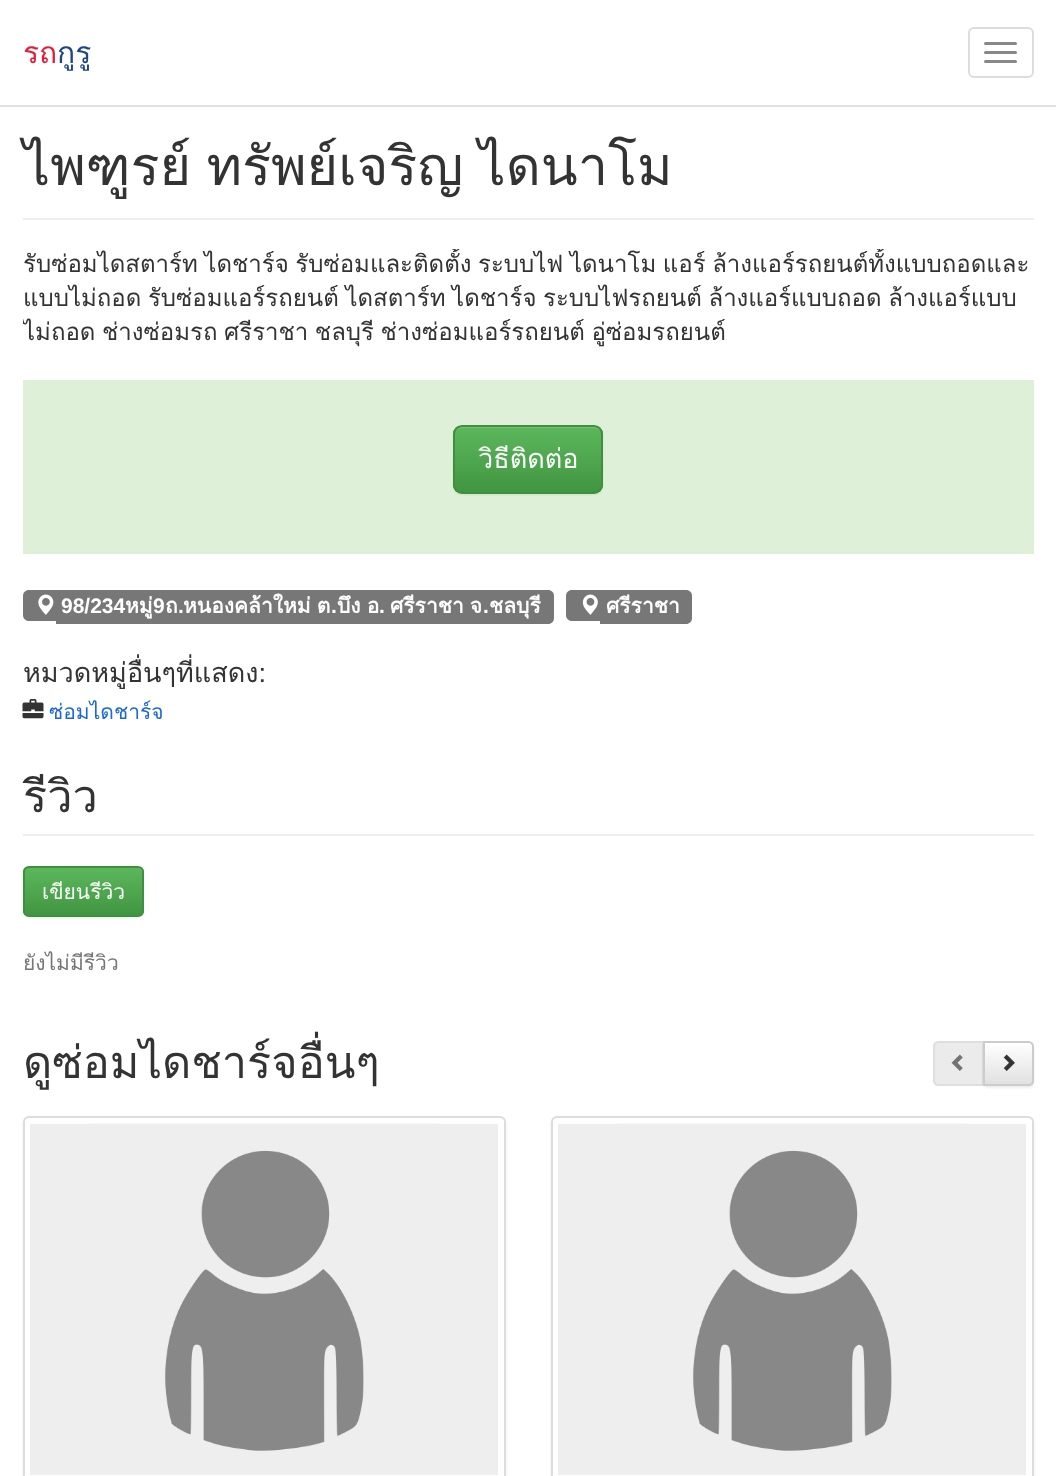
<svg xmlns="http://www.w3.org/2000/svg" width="1056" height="1476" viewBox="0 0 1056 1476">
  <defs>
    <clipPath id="clip1"><rect x="23" y="249" width="1011" height="101"/></clipPath>
    <filter id="blur1" x="-50%" y="-200%" width="200%" height="500%"><feGaussianBlur stdDeviation="1"/></filter>
    <clipPath id="clip2"><rect x="453" y="425" width="150" height="69" rx="9"/></clipPath>
    <linearGradient id="g1" gradientUnits="userSpaceOnUse" x1="528" y1="426" x2="528" y2="492"><stop offset="0" stop-color="#5cb85c"/><stop offset="1" stop-color="#419641"/></linearGradient>
    <clipPath id="clip3"><rect x="23" y="866" width="121" height="51" rx="6"/></clipPath>
    <linearGradient id="g2" gradientUnits="userSpaceOnUse" x1="83" y1="867" x2="83" y2="915"><stop offset="0" stop-color="#5cb85c"/><stop offset="1" stop-color="#419641"/></linearGradient>
    <clipPath id="clip4"><path d="M983 1041H1029C1032 1041 1034 1043 1034 1046V1081C1034 1084 1032 1086 1029 1086H983Z"/></clipPath>
    <linearGradient id="g3" gradientUnits="userSpaceOnUse" x1="1008" y1="1043" x2="1008" y2="1085"><stop offset="0" stop-color="#ffffff"/><stop offset="1" stop-color="#e0e0e0"/></linearGradient>
    <filter id="blur2" x="-50%" y="-200%" width="200%" height="500%"><feGaussianBlur stdDeviation="1.5"/></filter>
  </defs>
  <rect width="100%" height="100%" fill="#ffffff"/>
  <rect x="0" y="105" width="1056" height="2" fill="#e0e0e0"/>
  <text x="23" y="63" font-family="Loma" font-size="30" fill="#e41c39">รถ</text>
  <text x="57" y="63" font-family="Loma" font-size="30" fill="#204585">กูรู</text>
  <rect x="969" y="28" width="64" height="49" rx="5" fill="none" stroke="#dddddd" stroke-width="2"/>
  <rect x="984" y="42" width="33" height="3" rx="1.5" fill="#888888"/>
  <rect x="984" y="51" width="33" height="3" rx="1.5" fill="#888888"/>
  <rect x="984" y="60" width="33" height="3" rx="1.5" fill="#888888"/>
  <rect x="23" y="218" width="1011" height="2" fill="#eeeeee"/>
  <text x="23" y="185" word-spacing="-3" font-family="Loma" font-size="54" fill="#333333">ไพฑูรย์ ทรัพย์เจริญ ไดนาโม</text>
  <g clip-path="url(#clip1)">
    <text x="23" y="272" word-spacing="-1.5" font-family="Loma" font-size="24" fill="#333333">รับซ่อมไดสตาร์ท ไดชาร์จ รับซ่อมและติดตั้ง ระบบไฟ ไดนาโม แอร์ ล้างแอร์รถยนต์ทั้งแบบถอดและ</text>
  </g>
  <text x="23" y="306" word-spacing="-1.5" font-family="Loma" font-size="24" fill="#333333">แบบไม่ถอด รับซ่อมแอร์รถยนต์ ไดสตาร์ท ไดชาร์จ ระบบไฟรถยนต์ ล้างแอร์แบบถอด ล้างแอร์แบบ</text>
  <g clip-path="url(#clip1)">
    <text x="23" y="340" word-spacing="-1.5" font-family="Loma" font-size="24" fill="#333333">ไม่ถอด ช่างซ่อมรถ ศรีราชา ชลบุรี ช่างซ่อมแอร์รถยนต์ อู่ซ่อมรถยนต์</text>
  </g>
  <rect x="23" y="380" width="1011" height="174" fill="#dff0d8"/>
  <rect x="453" y="426" width="150" height="69" rx="9" fill="#000000" fill-opacity="0.07" filter="url(#blur1)"/>
  <g clip-path="url(#clip2)">
    <rect x="453" y="426" width="150" height="66" fill="url(#g1)"/>
  </g>
  <path d="M462 428H594C598 428 602 431 602 435V434C602 430 598 426 594 426H463C460 426 457 428 456 431C457 429 460 428 462 428Z" fill="#74c274"/>
  <rect x="454" y="426" width="148" height="67" rx="8" fill="none" stroke="#3e8f3e" stroke-width="2"/>
  <text x="478" y="468" font-family="Loma" font-size="27" fill="#ffffff">วิธีติดต่อ</text>
  <path d="M29 590H56V621H29C25.5 621 23 618.5 23 615V596C23 592.5 25.5 590 29 590Z" fill="#777777"/>
  <path d="M56 590H548C551.5 590 554 592.5 554 596V618C554 621.5 551.5 624 548 624H56Z" fill="#777777"/>
  <image x="38" y="594" width="16" height="21" href="img1.png"/>
  <text x="61" y="613" font-family="Liberation Sans" font-size="21" font-weight="bold" fill="#ffffff">98/234</text>
  <text x="125" y="613" font-family="Loma" font-size="21" font-weight="bold" fill="#ffffff">หมู่</text>
  <text x="153" y="613" font-family="Liberation Sans" font-size="21" font-weight="bold" fill="#ffffff">9</text>
  <text x="165" y="613" font-family="Loma" font-size="21" font-weight="bold" fill="#ffffff">ถ</text>
  <text x="178" y="613" font-family="Liberation Sans" font-size="21" font-weight="bold" fill="#ffffff">.</text>
  <text x="183" y="613" word-spacing="-1" font-family="Loma" font-size="21" font-weight="bold" fill="#ffffff">หนองคล้าใหม่ ต</text>
  <text x="331" y="613" font-family="Liberation Sans" font-size="21" font-weight="bold" fill="#ffffff">.</text>
  <text x="337" y="613" word-spacing="-1" font-family="Loma" font-size="21" font-weight="bold" fill="#ffffff">บึง อ</text>
  <text x="390" y="613" word-spacing="-1" font-family="Loma" font-size="21" font-weight="bold" fill="#ffffff">ศรีราชา จ</text>
  <text x="489" y="613" font-family="Loma" font-size="21" font-weight="bold" fill="#ffffff">ชลบุรี</text>
  <text x="379" y="613" font-family="Liberation Sans" font-size="21" font-weight="bold" fill="#ffffff">.</text>
  <text x="483" y="613" font-family="Liberation Sans" font-size="21" font-weight="bold" fill="#ffffff">.</text>
  <path d="M572 590H600V621H572C568.5 621 566 618.5 566 615V596C566 592.5 568.5 590 572 590Z" fill="#777777"/>
  <path d="M600 590H686C689.5 590 692 592.5 692 596V618C692 621.5 689.5 624 686 624H600Z" fill="#777777"/>
  <image x="582" y="594" width="16" height="21" href="img2.png"/>
  <text x="606" y="613" font-family="Loma" font-size="21" font-weight="bold" fill="#ffffff">ศรีราชา</text>
  <text x="23" y="682" font-family="Loma" font-size="27" fill="#333333">หมวดหมู่อื่นๆที่แสดง:</text>
  <image x="22" y="699" width="22" height="20" href="img3.png"/>
  <text x="49" y="719" font-family="Loma" font-size="21" fill="#1d68d7">ซ่อมไดชาร์จ</text>
  <rect x="23" y="834" width="1011" height="2" fill="#eeeeee"/>
  <text x="23" y="812" font-family="Loma" font-size="45" fill="#333333">รีวิว</text>
  <rect x="23" y="867" width="121" height="51" rx="6" fill="#000000" fill-opacity="0.07" filter="url(#blur1)"/>
  <g clip-path="url(#clip3)">
    <rect x="23" y="867" width="121" height="48" fill="url(#g2)"/>
  </g>
  <path d="M28 868H138C140 868 142 871 142 873V913C143 912 143 911 143 910V872C143 869 141 867 138 867H29C26 867 24 869 24 872V873C24 871 26 868 28 868Z" fill="#ffffff" fill-opacity="0.15"/>
  <rect x="24" y="867" width="119" height="49" rx="5" fill="none" stroke="#3e8f3e" stroke-width="2"/>
  <text x="42" y="899" font-family="Loma" font-size="21" fill="#ffffff">เขียนรีวิว</text>
  <text x="23" y="970" font-family="Loma" font-size="21" fill="#777777">ยังไม่มีรีวิว</text>
  <text x="23" y="1078" font-family="Loma" font-size="45" fill="#333333">ดูซ่อมไดชาร์จอื่นๆ</text>
  <path d="M938 1042H983V1085H938C936 1085 934 1083 934 1081V1046C934 1044 936 1042 938 1042Z" fill="#ebebeb" stroke="#dedede" stroke-width="2"/>
  <image x="951" y="1054" width="12" height="17" href="img4.png"/>
  <rect x="983" y="1043" width="51" height="45" rx="5" fill="#000000" fill-opacity="0.07" filter="url(#blur1)"/>
  <g clip-path="url(#clip4)">
    <rect x="985" y="1043" width="49" height="42" fill="url(#g3)"/>
  </g>
  <path d="M984 1042H1029C1031 1042 1033 1044 1033 1046V1081C1033 1083 1031 1085 1029 1085H984Z" fill="none" stroke="#cccccc" stroke-width="2"/>
  <image x="1003" y="1054" width="12" height="17" href="img5.png"/>
  <rect x="23" y="1118" width="483" height="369" rx="6" fill="#000000" fill-opacity="0.07" filter="url(#blur2)"/>
  <rect x="24" y="1117" width="481" height="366" rx="5" fill="#ffffff" stroke="#dddddd" stroke-width="2"/>
  <rect x="30" y="1124" width="468" height="351" fill="#eeeeee"/>
  <image x="88" y="1123" width="352" height="328" href="img6.png"/>
  <rect x="551" y="1118" width="483" height="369" rx="6" fill="#000000" fill-opacity="0.07" filter="url(#blur2)"/>
  <rect x="552" y="1117" width="481" height="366" rx="5" fill="#ffffff" stroke="#dddddd" stroke-width="2"/>
  <rect x="558" y="1124" width="468" height="351" fill="#eeeeee"/>
  <image x="616" y="1123" width="352" height="328" href="img6.png"/>
</svg>
